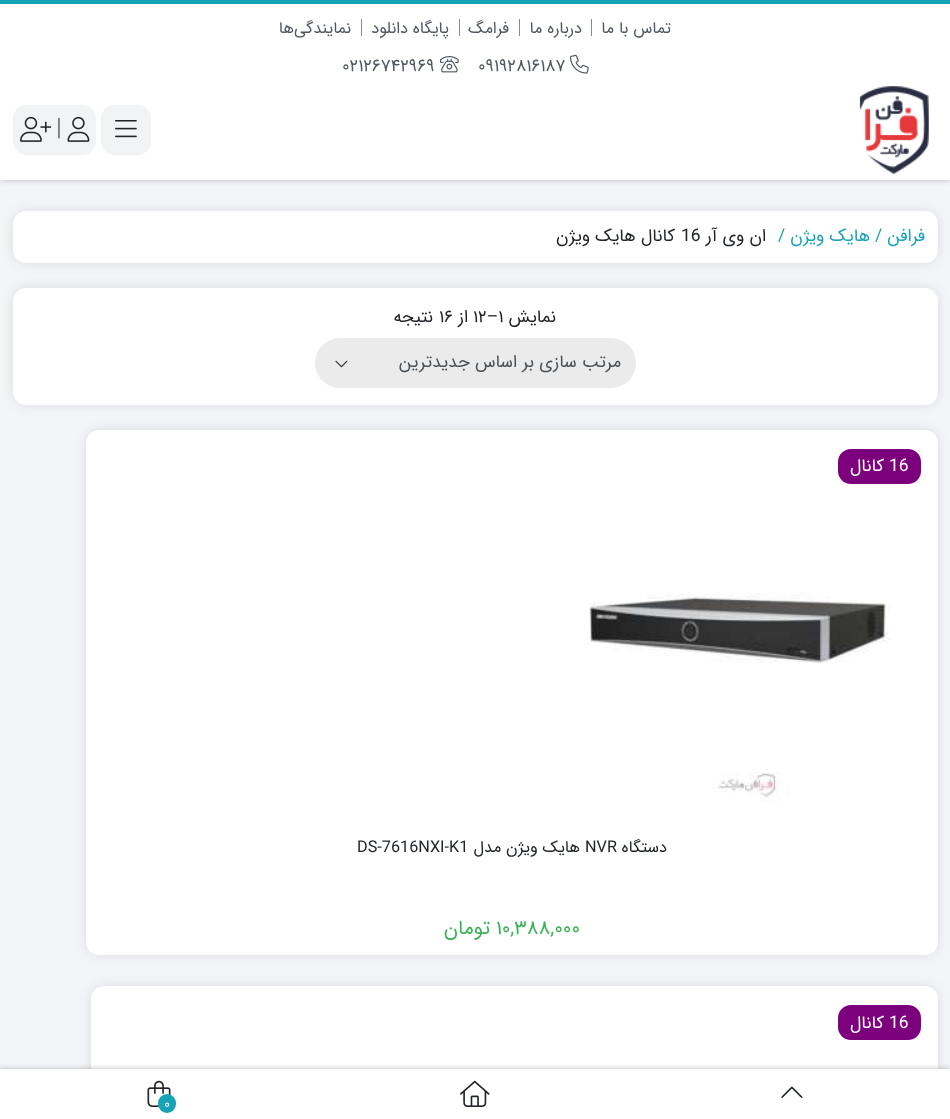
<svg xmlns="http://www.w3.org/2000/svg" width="950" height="1119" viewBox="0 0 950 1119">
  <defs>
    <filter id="blur1" x="-50%" y="-200%" width="200%" height="500%"><feGaussianBlur stdDeviation="2.5"/></filter>
    <filter id="blur2" x="-50%" y="-200%" width="200%" height="500%"><feGaussianBlur stdDeviation="6"/></filter>
  </defs>
  <rect width="100%" height="100%" fill="#f4f5f9"/>
  <rect x="0" y="1" width="950" height="180" fill="#000000" fill-opacity="0.19" filter="url(#blur1)"/>
  <rect x="0" y="4" width="950" height="176" fill="#ffffff"/>
  <rect x="0" y="0" width="950" height="4" fill="#17a2b8"/>
  <text x="671" y="33" font-family="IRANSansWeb" font-size="16.25" direction="rtl" fill="#505763">تماس با ما</text>
  <rect x="591" y="19" width="1" height="17" fill="#858992"/>
  <text x="582" y="33" font-family="IRANSansWeb" font-size="16.25" direction="rtl" fill="#505763">درباره ما</text>
  <rect x="519" y="19" width="1" height="17" fill="#858992"/>
  <text x="509" y="33" font-family="IRANSansWeb" font-size="16.25" direction="rtl" fill="#505763">فرامگ</text>
  <rect x="459" y="19" width="1" height="17" fill="#858992"/>
  <text x="449" y="33" font-family="IRANSansWeb" font-size="16.25" direction="rtl" fill="#505763">پایگاه دانلود</text>
  <rect x="361" y="19" width="1" height="17" fill="#858992"/>
  <text x="351" y="33" font-family="IRANSansWeb" font-size="16.25" direction="rtl" fill="#505763">نمایندگی‌‌ها</text>
  <image x="570" y="54" width="19" height="20" href="img1.png"/>
  <text x="478" y="71" font-family="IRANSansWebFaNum" font-size="17.5" fill="#505763">09192816187</text>
  <image x="440" y="56" width="19" height="17" href="img2.png"/>
  <text x="342" y="71" font-family="IRANSansWebFaNum" font-size="17.5" fill="#505763">02126742969</text>
  <image x="859" y="86" width="70" height="88" href="img3.png"/>
  <rect x="101.5" y="105.5" width="49" height="49" rx="12.5" fill="#f1f3f4" stroke="#f1f3f4"/>
  <image x="115" y="120" width="22" height="18" href="img4.png"/>
  <rect x="13.5" y="105.5" width="82" height="49" rx="12.5" fill="#f1f3f4" stroke="#f1f3f4"/>
  <image x="67" y="116" width="23" height="26" href="img5.png"/>
  <text x="56" y="135" font-family="IRANSansWeb" font-size="24" fill="#777777">|</text>
  <image x="20" y="116" width="32" height="26" href="img6.png"/>
  <rect x="13" y="211" width="925" height="52" rx="13" fill="#000000" fill-opacity="0.1" filter="url(#blur2)"/>
  <rect x="13" y="211" width="925" height="52" rx="13" fill="#ffffff"/>
  <text x="925" y="241" font-family="IRANSansWeb" font-size="17.5" direction="rtl" fill="#17a2b8">فرافن</text>
  <text x="875" y="241" font-family="IRANSansWeb" font-size="17.5" fill="#17a2b8">/</text>
  <text x="870" y="241" font-family="IRANSansWeb" font-size="17.5" direction="rtl" fill="#17a2b8">هایک ویژن</text>
  <text x="778" y="241" font-family="IRANSansWeb" font-size="17.5" fill="#17a2b8">/</text>
  <text x="766" y="241" font-family="IRANSansWeb" font-size="17.5" direction="rtl" fill="#212529">ان وی آر</text>
  <text x="681" y="241" font-family="IRANSansWeb" font-size="17.5" fill="#212529">16</text>
  <text x="675" y="241" font-family="IRANSansWeb" font-size="17.5" direction="rtl" fill="#212529">کانال هایک ویژن</text>
  <rect x="13" y="288" width="925" height="117" rx="13" fill="#000000" fill-opacity="0.1" filter="url(#blur2)"/>
  <rect x="13" y="288" width="925" height="117" rx="13" fill="#ffffff"/>
  <text x="556" y="322" font-family="IRANSansWebFaNum" font-size="17.5" direction="rtl" fill="#212529">نمایش</text>
  <text x="473" y="322" font-family="IRANSansWebFaNum" font-size="17.5" fill="#212529">12–1</text>
  <text x="468" y="322" font-family="IRANSansWebFaNum" font-size="17.5" direction="rtl" fill="#212529">از</text>
  <text x="439" y="322" font-family="IRANSansWebFaNum" font-size="17.5" fill="#212529">16</text>
  <text x="433" y="322" font-family="IRANSansWebFaNum" font-size="17.5" direction="rtl" fill="#212529">نتیجه</text>
  <rect x="315" y="338" width="321" height="50" rx="25" fill="#ebebeb"/>
  <text x="621" y="367" font-family="IRANSansWeb" font-size="17.5" direction="rtl" fill="#495057">مرتب سازی بر اساس جدیدترین</text>
  <image x="335" y="360" width="13" height="8" href="img7.png"/>
  <rect x="86" y="430" width="852" height="525" rx="13" fill="#000000" fill-opacity="0.1" filter="url(#blur2)"/>
  <rect x="86" y="430" width="852" height="525" rx="13" fill="#ffffff"/>
  <rect x="838" y="449" width="83" height="35" rx="13" fill="#7c007c"/>
  <text x="889" y="471" font-family="IRANSansWeb" font-size="17.5" fill="#ffffff">16</text>
  <text x="884" y="471" font-family="IRANSansWeb" font-size="17.5" direction="rtl" fill="#ffffff">کانال</text>
  <image x="589" y="592" width="301" height="210" href="img8.png"/>
  <text x="667" y="852" font-family="IRANSansWeb" font-size="16.25" direction="rtl" fill="#212529">دستگاه</text>
  <text x="585" y="852" font-family="IRANSansWeb" font-size="16.25" fill="#212529">NVR</text>
  <text x="580" y="852" font-family="IRANSansWeb" font-size="16.25" direction="rtl" fill="#212529">هایک ویژن مدل</text>
  <text x="357" y="852" font-family="IRANSansWeb" font-size="16.25" fill="#212529">DS-7616NXI-K1</text>
  <text x="496" y="934" font-family="IRANSansWebFaNum" font-size="20" fill="#39b156">10,388,000</text>
  <text x="490" y="934" font-family="IRANSansWebFaNum" font-size="20" direction="rtl" fill="#39b156">تومان</text>
  <rect x="91" y="986" width="847" height="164" rx="13" fill="#000000" fill-opacity="0.1" filter="url(#blur2)"/>
  <rect x="91" y="986" width="847" height="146" rx="13" fill="#ffffff"/>
  <rect x="838" y="1005" width="83" height="35" rx="13" fill="#7c007c"/>
  <text x="889" y="1028" font-family="IRANSansWeb" font-size="17.5" fill="#ffffff">16</text>
  <text x="884" y="1028" font-family="IRANSansWeb" font-size="17.5" direction="rtl" fill="#ffffff">کانال</text>
  <rect x="0" y="1068" width="950" height="51" fill="#000000" fill-opacity="0.19" filter="url(#blur1)"/>
  <rect x="0" y="1069" width="950" height="50" fill="#ffffff"/>
  <image x="781" y="1086" width="22" height="12" href="img9.png"/>
  <image x="460" y="1080" width="30" height="27" href="img10.png"/>
  <image x="147" y="1080" width="24" height="27" href="img11.png"/>
  <rect x="158" y="1094" width="18" height="19" rx="9" fill="#17a2b8"/>
  <text x="164" y="1108" font-family="IRANSansWebFaNum" font-size="14" fill="#ffffff">0</text>
</svg>
